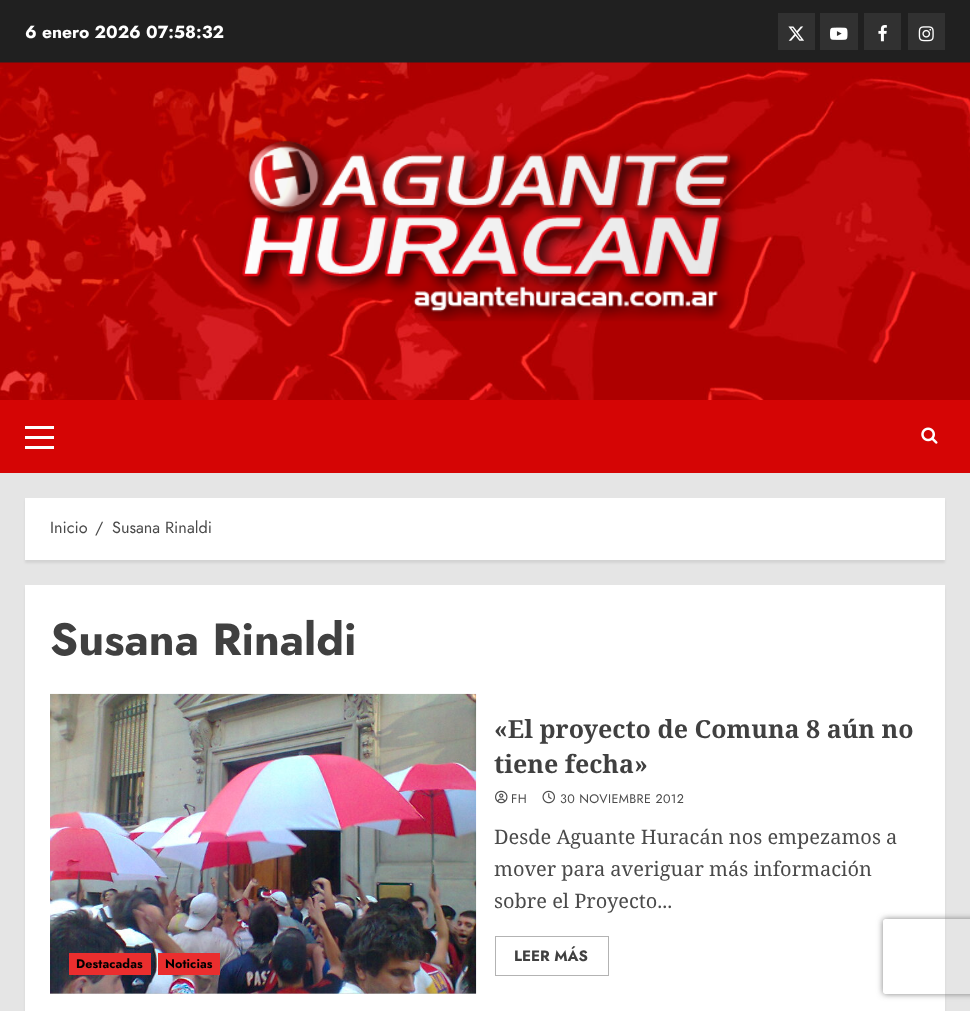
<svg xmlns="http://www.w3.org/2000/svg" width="970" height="1011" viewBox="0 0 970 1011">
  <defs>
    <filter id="blur1" x="-50%" y="-200%" width="200%" height="500%"><feGaussianBlur stdDeviation="1"/></filter>
    <clipPath id="clip1"><path d="M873 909H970V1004H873ZM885.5 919H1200.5C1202 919 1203 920 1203 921.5V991.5C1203 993 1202 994 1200.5 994H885.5C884 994 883 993 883 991.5V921.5C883 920 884 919 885.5 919Z" clip-rule="evenodd"/></clipPath>
    <filter id="blur2" x="-50%" y="-200%" width="200%" height="500%"><feGaussianBlur stdDeviation="3"/></filter>
  </defs>
  <rect width="100%" height="100%" fill="#e5e5e5"/>
  <rect x="0" y="0" width="970" height="63" fill="#202020"/>
  <text x="25" y="38" font-family="Jost" font-size="17.5" font-weight="bold" fill="#ffffff">6 enero 2026 07:58:32</text>
  <rect x="778" y="13" width="37" height="37" fill="#313131"/>
  <image x="788" y="26" width="16" height="15" href="img1.png"/>
  <rect x="820" y="13" width="38" height="37" fill="#313131"/>
  <image x="830" y="27" width="18" height="13" href="img2.png"/>
  <rect x="864" y="13" width="37" height="37" fill="#313131"/>
  <image x="878" y="25" width="9" height="17" href="img3.png"/>
  <rect x="908" y="13" width="37" height="37" fill="#313131"/>
  <image x="918" y="26" width="16" height="16" href="img4.png"/>
  <image x="0" y="62" width="970" height="338" href="img5.png"/>
  <image x="239" y="137" width="507" height="185" href="img6.png"/>
  <rect x="0" y="400" width="970" height="73" fill="#d50505"/>
  <rect x="25" y="436" width="29" height="3" fill="#ffffff"/>
  <rect x="25" y="426" width="29" height="3" fill="#ffffff"/>
  <rect x="25" y="446" width="29" height="3" fill="#ffffff"/>
  <image x="921" y="427" width="17" height="17" href="img7.png"/>
  <rect x="25" y="500" width="920" height="63" fill="#000000" fill-opacity="0.08" filter="url(#blur1)"/>
  <rect x="25" y="498" width="920" height="62" fill="#ffffff"/>
  <text x="50" y="533" font-family="Jost" font-size="16.25" fill="#4a4a4a">Inicio</text>
  <text x="95" y="533" font-family="Jost" font-size="16.25" fill="#4a4a4a">/</text>
  <text x="112" y="533" font-family="Jost" font-size="16.25" fill="#4a4a4a">Susana Rinaldi</text>
  <rect x="25" y="588" width="920" height="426" fill="#000000" fill-opacity="0.08" filter="url(#blur1)"/>
  <rect x="25" y="585" width="920" height="426" fill="#ffffff"/>
  <text x="50" y="655" font-family="Jost" font-size="45" font-weight="bold" fill="#404040">Susana Rinaldi</text>
  <text x="494" y="738" font-family="Noto Serif" font-size="25" font-weight="bold" fill="#404040">«El proyecto de Comuna 8 aún no</text>
  <text x="494" y="773" font-family="Noto Serif" font-size="25" font-weight="bold" fill="#404040">tiene fecha»</text>
  <image x="495" y="790" width="13" height="14" href="img8.png"/>
  <text x="511" y="803" font-family="Jost" font-size="12.5" letter-spacing="0.4" fill="#4a4a4a">FH</text>
  <image x="542" y="790" width="13" height="14" href="img9.png"/>
  <text x="560" y="803" font-family="Jost" font-size="12.5" letter-spacing="0.4" fill="#4a4a4a">30 NOVIEMBRE 2012</text>
  <text x="494" y="844" font-family="Noto Serif" font-size="20" fill="#4a4a4a">Desde Aguante Huracán nos empezamos a</text>
  <text x="494" y="876" font-family="Noto Serif" font-size="20" fill="#4a4a4a">mover para averiguar más información</text>
  <text x="494" y="908" font-family="Noto Serif" font-size="20" fill="#4a4a4a">sobre el Proyecto...</text>
  <rect x="495.5" y="936.5" width="113" height="39" fill="none" stroke="#b3b3b3"/>
  <text x="514" y="961" font-family="Jost" font-size="15" font-weight="bold" fill="#404040">LEER MÁS</text>
  <rect x="50" y="993" width="426" height="1" fill="#cccccc"/>
  <image x="50" y="693" width="427" height="301" href="img10.png"/>
  <rect x="69" y="953" width="82" height="22" fill="#ea2e2e"/>
  <text x="76" y="968" font-family="Jost" font-size="12.5" font-weight="bold" letter-spacing="0.1" fill="#000000">Destacadas</text>
  <rect x="158" y="953" width="62" height="22" fill="#ea2e2e"/>
  <text x="165" y="968" font-family="Jost" font-size="12.5" font-weight="bold" letter-spacing="0.1" fill="#000000">Noticias</text>
  <g clip-path="url(#clip1)">
    <rect x="883" y="919" width="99" height="75" rx="2.5" fill="#808080" filter="url(#blur2)"/>
  </g>
</svg>
